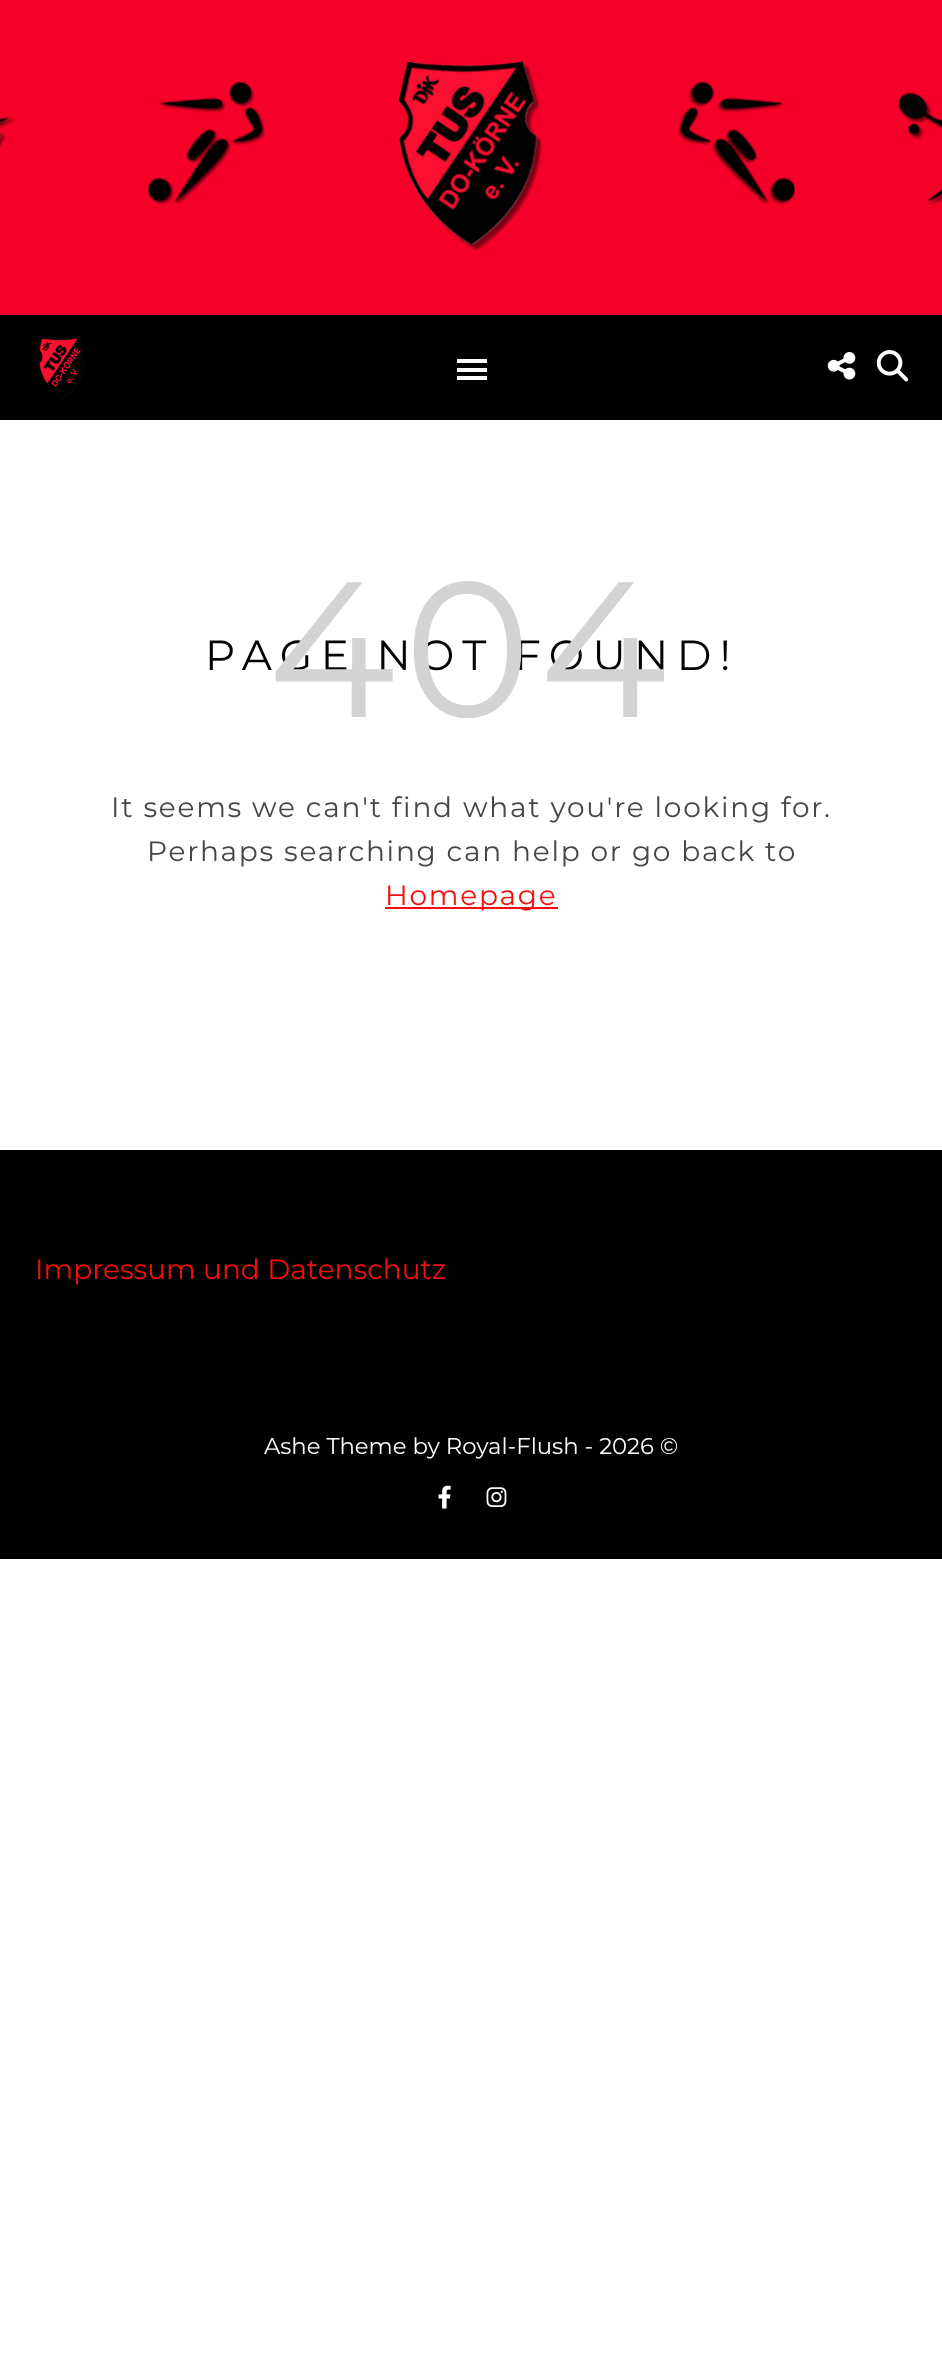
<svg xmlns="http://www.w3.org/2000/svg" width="942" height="2375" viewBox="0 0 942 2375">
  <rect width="100%" height="100%" fill="#ffffff"/>
  <image x="0" y="0" width="942" height="315" href="img1.png"/>
  <rect x="0" y="315" width="942" height="105" fill="#000000"/>
  <image x="37" y="336" width="48" height="63" href="img2.png"/>
  <rect x="457" y="359" width="30" height="4" fill="#ffffff"/>
  <rect x="457" y="368" width="30" height="4" fill="#ffffff"/>
  <rect x="457" y="376" width="30" height="4" fill="#ffffff"/>
  <image x="827" y="352" width="29" height="28" href="img3.png"/>
  <image x="876" y="350" width="33" height="32" href="img4.png"/>
  <text x="205" y="670" font-family="Montserrat" font-size="42" letter-spacing="8.4" fill="#030303">PAGE NOT FOUND!</text>
  <text x="268" y="717" font-family="Montserrat" font-size="192.5" letter-spacing="8.4" fill="#d3d3d3">404</text>
  <text x="111" y="817" font-family="Montserrat" font-size="28" letter-spacing="1.75" fill="#464646">It seems we can't find what you're looking for.</text>
  <text x="147" y="861" font-family="Montserrat" font-size="28" letter-spacing="1.75" fill="#464646">Perhaps searching can help or go back to</text>
  <rect x="385" y="907" width="173" height="2" fill="#f40e0e"/>
  <text x="385" y="905" font-family="Montserrat" font-size="28" letter-spacing="1.75" fill="#f40e0e">Homepage</text>
  <rect x="0" y="1150" width="942" height="409" fill="#000000"/>
  <text x="35" y="1279" font-family="Montserrat" font-size="28" fill="#f40e0e">Impressum und Datenschutz</text>
  <text x="264" y="1454" font-family="Montserrat" font-size="22.75" fill="#ffffff">Ashe Theme by Royal-Flush - 2026 ©</text>
  <image x="438" y="1485" width="13" height="24" href="img5.png"/>
  <image x="486" y="1487" width="21" height="20" href="img6.png"/>
</svg>
